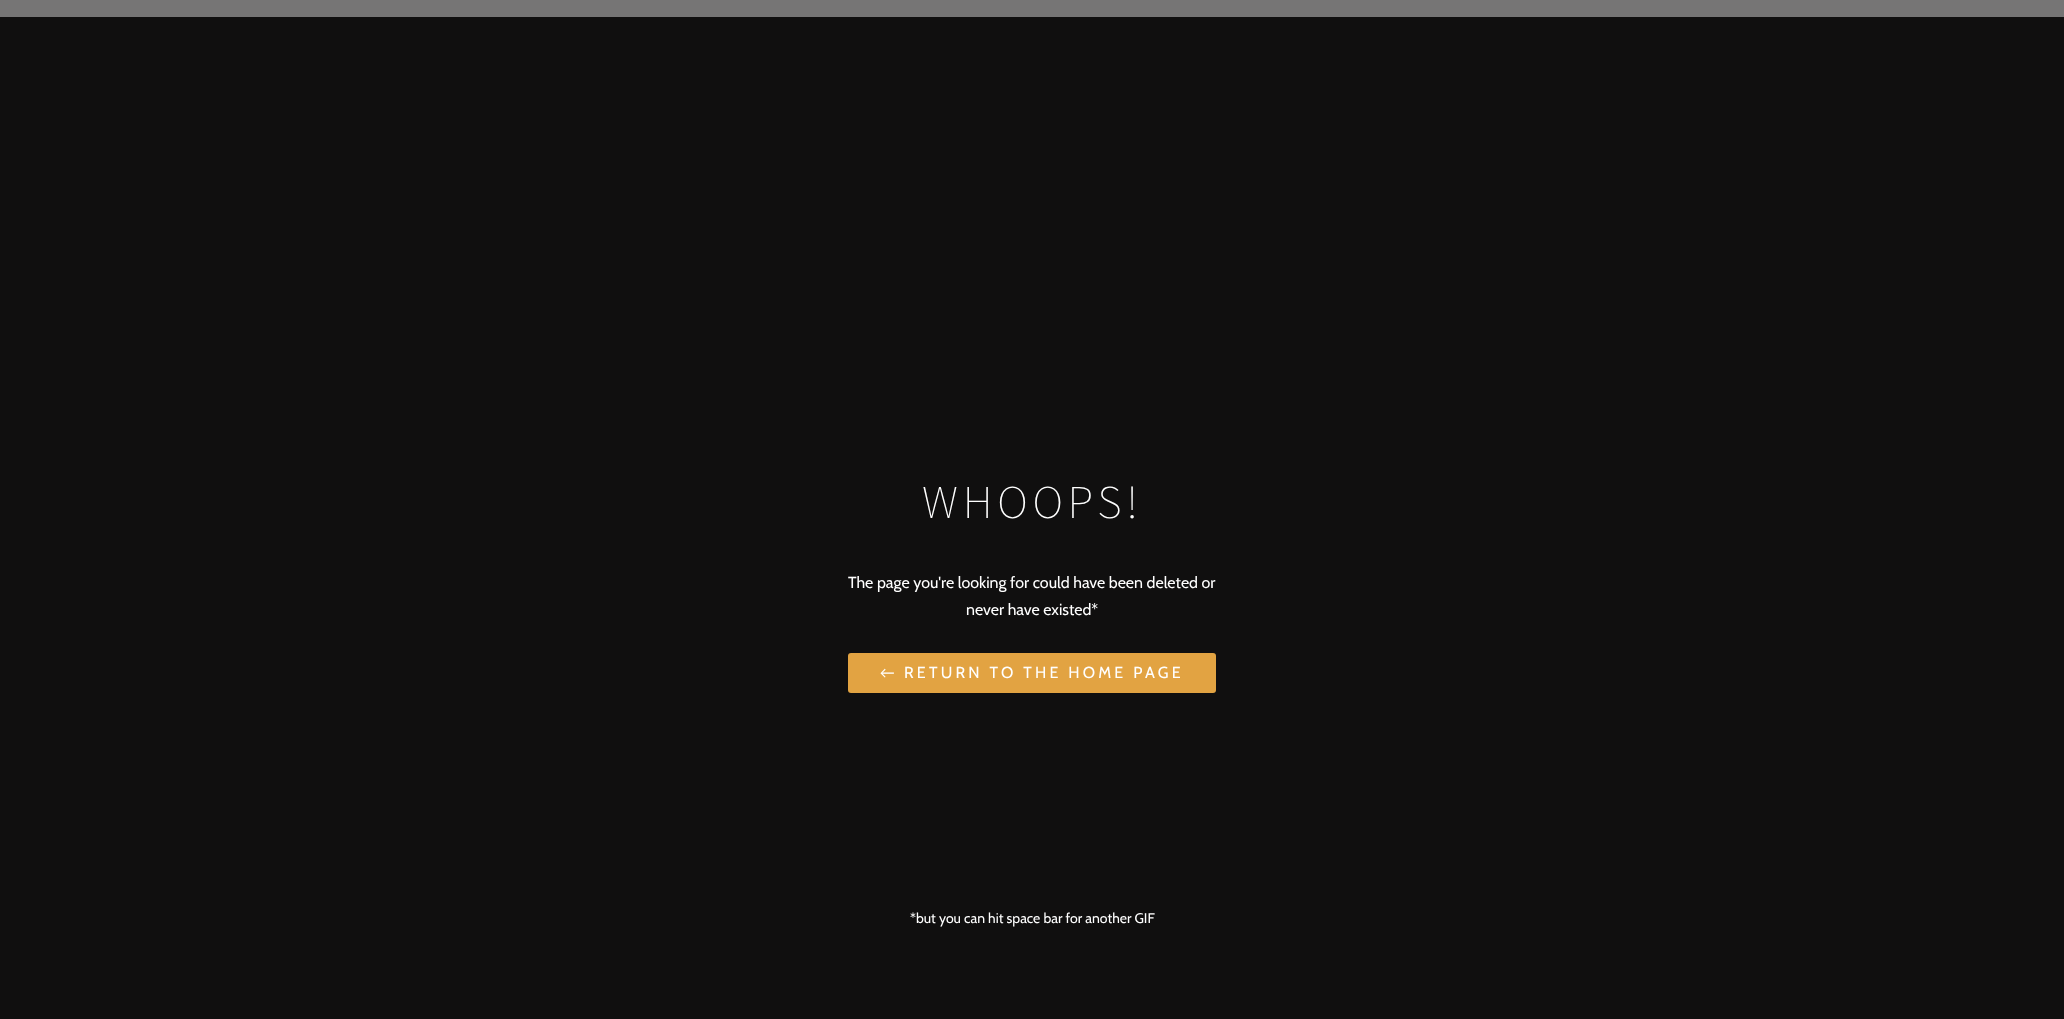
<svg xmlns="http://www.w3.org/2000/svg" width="2064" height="1019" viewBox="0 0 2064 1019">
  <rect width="100%" height="100%" fill="#767575"/>
  <rect x="0" y="17" width="2064" height="1002" fill="#100f0f"/>
  <text x="922" y="518" font-family="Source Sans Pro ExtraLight" font-size="47" font-weight="200" letter-spacing="4.75" fill="#ffffff">WHOOPS!</text>
  <text x="848" y="588" font-family="Cabin" font-size="16" fill="#ffffff">The page you're looking for could have been deleted or</text>
  <text x="966" y="615" font-family="Cabin" font-size="16" fill="#ffffff">never have existed*</text>
  <rect x="848" y="653" width="368" height="40" rx="3" fill="#e2a342"/>
  <text x="880" y="678" font-family="Carlito" font-size="16" letter-spacing="3.2" fill="#ffffff">←</text>
  <text x="904" y="678" font-family="Cabin" font-size="16" letter-spacing="3.2" fill="#ffffff">RETURN TO THE HOME PAGE</text>
  <text x="910" y="923" font-family="Cabin" font-size="14" fill="#ffffff">*but you can hit space bar for another GIF</text>
</svg>
